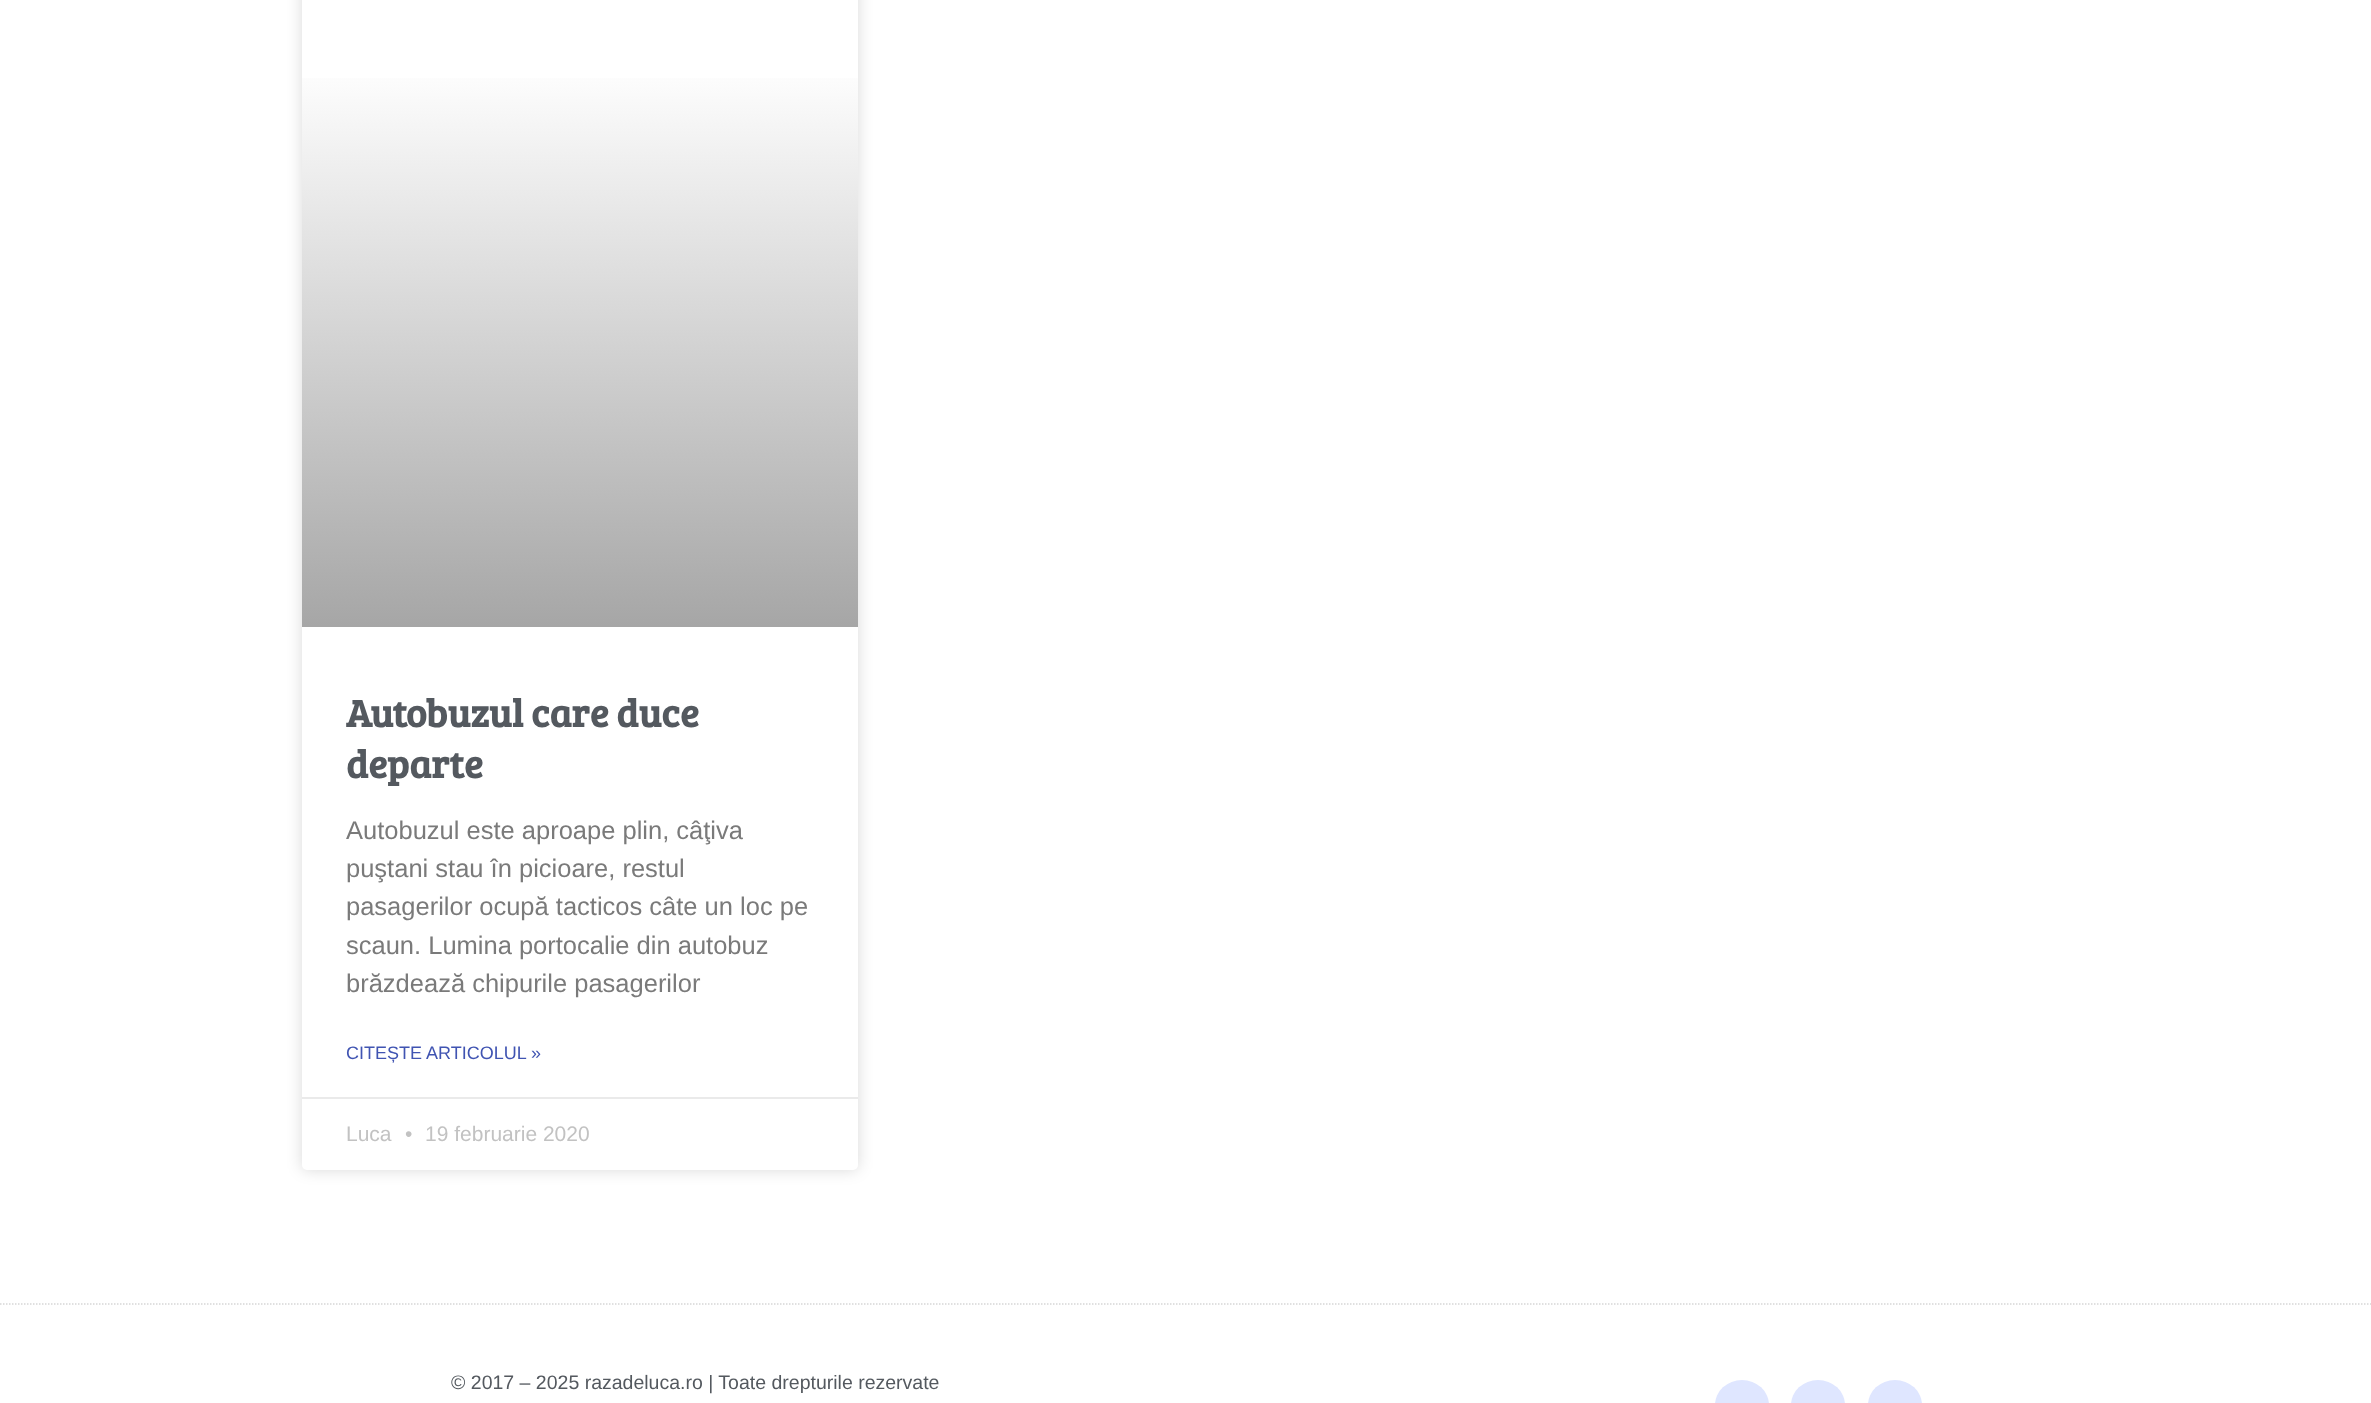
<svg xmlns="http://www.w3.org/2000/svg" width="2371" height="1403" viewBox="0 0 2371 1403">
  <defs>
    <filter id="blur1" x="-50%" y="-200%" width="200%" height="500%"><feGaussianBlur stdDeviation="7.5"/></filter>
    <linearGradient id="g1" gradientUnits="userSpaceOnUse" x1="580" y1="627" x2="580" y2="-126"><stop offset="0" stop-color="#a6a6a6"/><stop offset="0.75" stop-color="#ffffff"/></linearGradient>
  </defs>
  <rect width="100%" height="100%" fill="#ffffff"/>
  <rect x="302" y="-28" width="556" height="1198" rx="5" fill="#000000" fill-opacity="0.15" filter="url(#blur1)"/>
  <rect x="302" y="-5" width="556" height="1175" rx="5" fill="#ffffff"/>
  <rect x="302" y="78" width="556" height="549" fill="url(#g1)"/>
  <text x="346" y="727" font-family="Bree Serif" font-size="39" font-weight="bold" fill="#54595f">Autobuzul care duce</text>
  <text x="346" y="778" font-family="Bree Serif" font-size="39" font-weight="bold" fill="#54595f">departe</text>
  <text x="346" y="839" font-family="Liberation Sans" font-size="25.5" fill="#7a7a7a">Autobuzul este aproape plin, câţiva</text>
  <text x="346" y="877" font-family="Liberation Sans" font-size="25.5" fill="#7a7a7a">puştani stau în picioare, restul</text>
  <text x="346" y="915" font-family="Liberation Sans" font-size="25.5" fill="#7a7a7a">pasagerilor ocupă tacticos câte un loc pe</text>
  <text x="346" y="954" font-family="Liberation Sans" font-size="25.5" fill="#7a7a7a">scaun. Lumina portocalie din autobuz</text>
  <text x="346" y="992" font-family="Liberation Sans" font-size="25.5" fill="#7a7a7a">brăzdează chipurile pasagerilor</text>
  <text x="346" y="1059" font-family="Liberation Sans" font-size="18" fill="#4054b2">CITEȘTE ARTICOLUL »</text>
  <rect x="302" y="1097" width="556" height="2" fill="#eaeaea"/>
  <text x="346" y="1141" font-family="Liberation Sans" font-size="21" fill="#c2c2c2">Luca</text>
  <text x="405" y="1141" font-family="Liberation Sans" font-size="21" fill="#c2c2c2">•</text>
  <text x="425" y="1141" font-family="Liberation Sans" font-size="21" fill="#c2c2c2">19 februarie 2020</text>
  <path d="M0 1304H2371.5" fill="none" stroke="#d6d6d6" stroke-width="1.5" stroke-dasharray="1.5 1.5"/>
  <text x="451" y="1389" font-family="Liberation Sans" font-size="19.5" fill="#54595f">© 2017 – 2025 razadeluca.ro | Toate drepturile rezervate</text>
  <rect x="1715" y="1380" width="54" height="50" rx="27" fill="#dfe6ff"/>
  <rect x="1791" y="1380" width="54" height="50" rx="27" fill="#dfe6ff"/>
  <rect x="1868" y="1380" width="54" height="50" rx="27" fill="#dfe6ff"/>
</svg>
